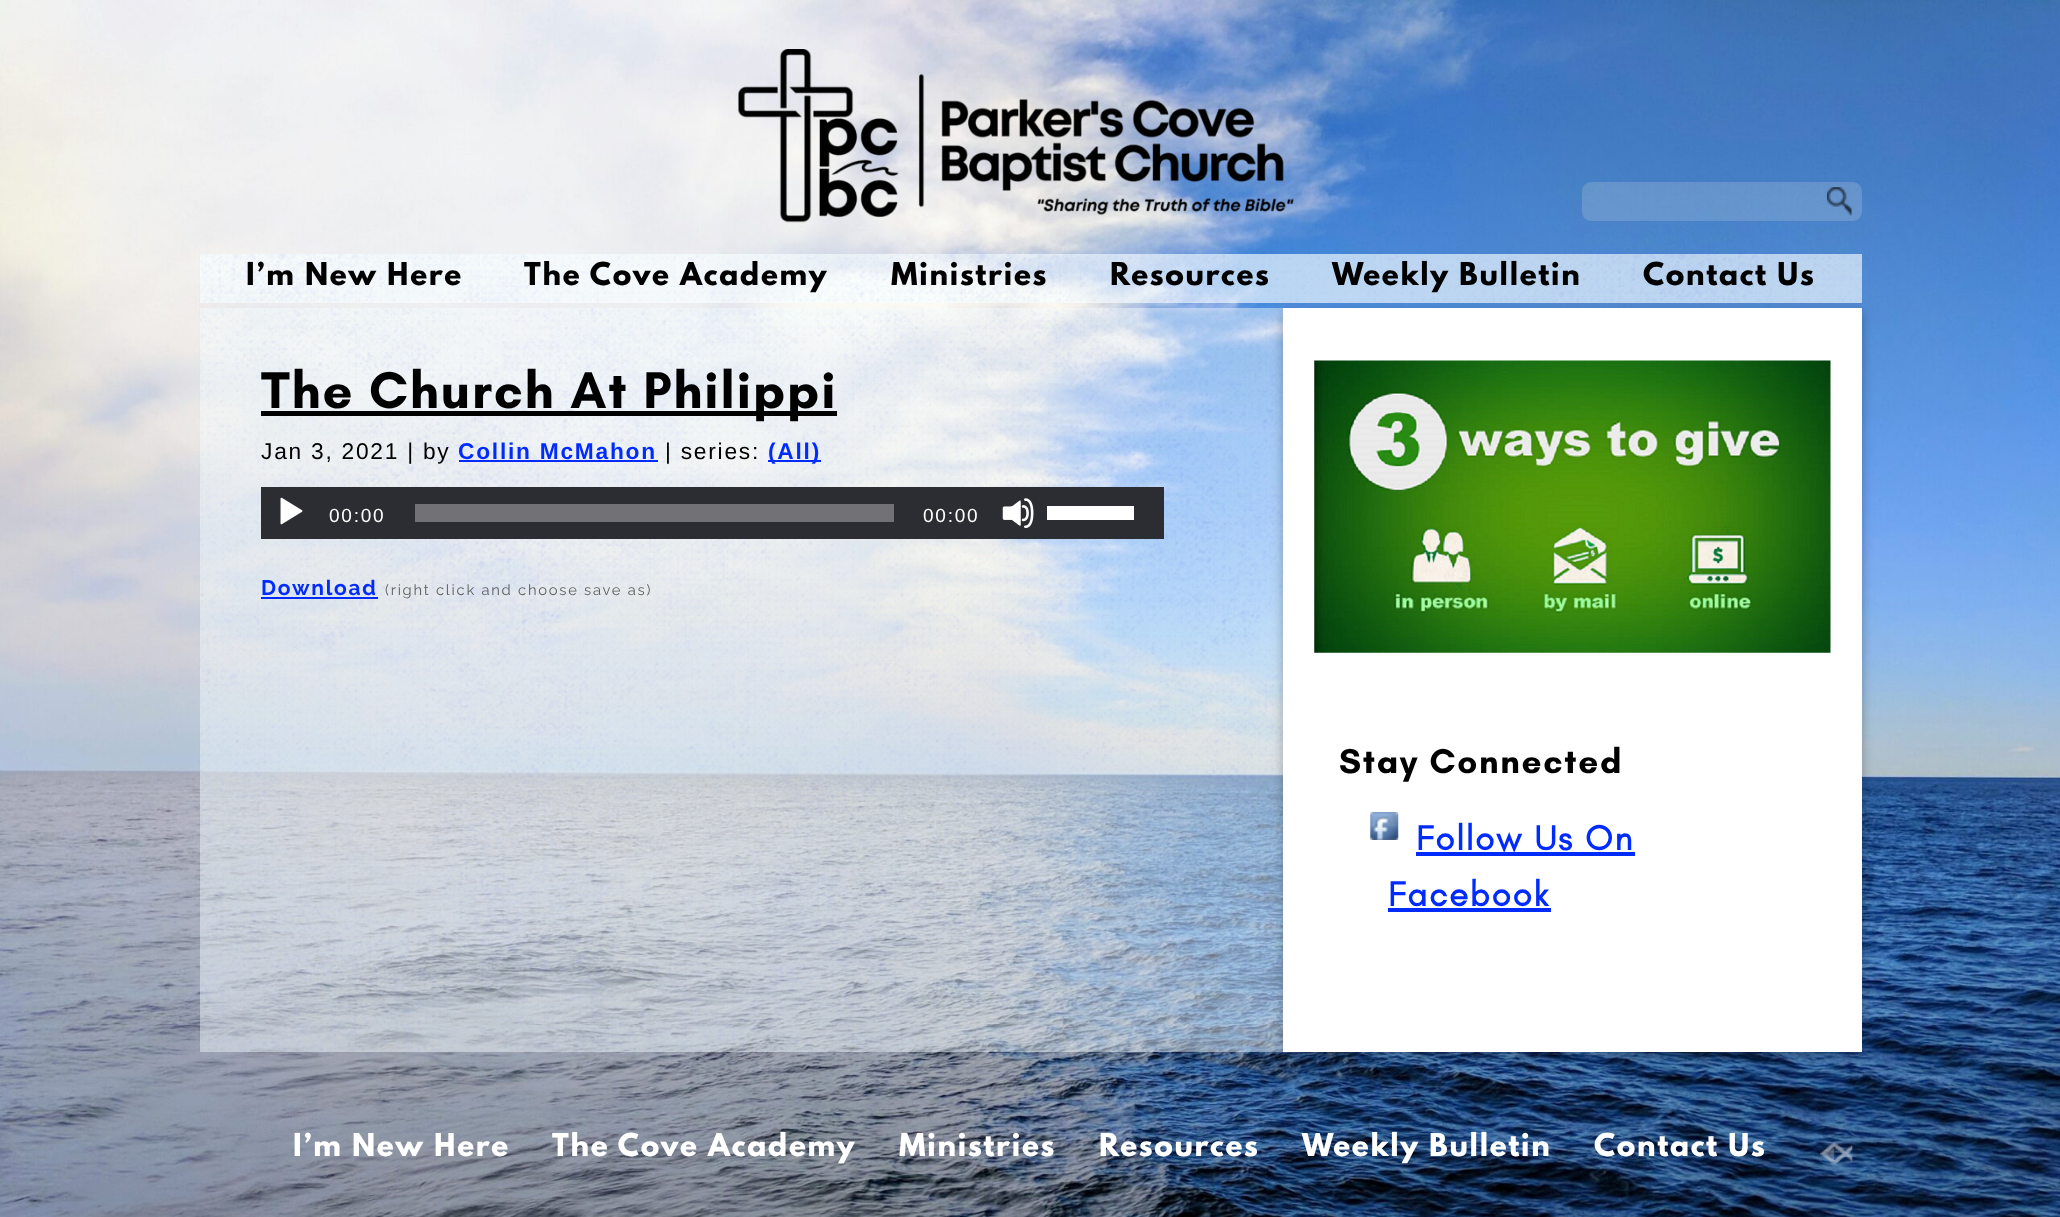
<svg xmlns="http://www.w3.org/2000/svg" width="2060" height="1217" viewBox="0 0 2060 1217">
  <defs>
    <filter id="blur1" x="-50%" y="-200%" width="200%" height="500%"><feGaussianBlur stdDeviation="6"/></filter>
  </defs>
  <rect width="100%" height="100%" fill="#ffffff"/>
  <image x="0" y="0" width="2060" height="1217" href="img1.png"/>
  <image x="738" y="49" width="556" height="174" href="img2.png"/>
  <rect x="1582" y="182" width="280" height="39" rx="9" fill="#dfdfdf" fill-opacity="0.2"/>
  <image x="1827" y="187" width="25" height="29" href="img3.png"/>
  <rect x="200" y="308" width="1083" height="744" fill="#ffffff" fill-opacity="0.46"/>
  <image x="199" y="308" width="1084" height="744" href="img5.png"/>
  <rect x="1283" y="312" width="579" height="743" fill="#1e1e1e" fill-opacity="0.28" filter="url(#blur1)"/>
  <rect x="200" y="254" width="1662" height="49" fill="#ffffff" fill-opacity="0.65"/>
  <image x="199" y="254" width="1663" height="49" href="img4.png"/>
  <text x="246" y="285" font-family="League Spartan" font-size="28" font-weight="bold" letter-spacing="1.75" fill="#000000">I’m New Here</text>
  <text x="524" y="285" font-family="League Spartan" font-size="28" font-weight="bold" letter-spacing="1.75" fill="#000000">The Cove Academy</text>
  <text x="891" y="285" font-family="League Spartan" font-size="28" font-weight="bold" letter-spacing="1.75" fill="#000000">Ministries</text>
  <text x="1110" y="285" font-family="League Spartan" font-size="28" font-weight="bold" letter-spacing="1.75" fill="#000000">Resources</text>
  <text x="1332" y="285" font-family="League Spartan" font-size="28" font-weight="bold" letter-spacing="1.75" fill="#000000">Weekly Bulletin</text>
  <text x="1643" y="285" font-family="League Spartan" font-size="28" font-weight="bold" letter-spacing="1.75" fill="#000000">Contact Us</text>
  <rect x="261" y="411" width="576" height="5" fill="#000000"/>
  <text x="261" y="408" font-family="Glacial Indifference" font-size="52.5" font-weight="bold" letter-spacing="1.75" fill="#000000">The Church At Philippi</text>
  <text x="261" y="459" font-family="Liberation Sans" font-size="22.75" letter-spacing="1.75" fill="#000000">Jan 3, 2021 | by</text>
  <text x="458" y="459" font-family="Liberation Sans" font-size="22.75" font-weight="bold" letter-spacing="1.75" fill="#002bff">Collin McMahon</text>
  <rect x="459" y="460" width="199" height="2" fill="#002bff"/>
  <text x="665" y="459" font-family="Liberation Sans" font-size="22.75" letter-spacing="1.75" fill="#000000">| series:</text>
  <rect x="768" y="460" width="53" height="2" fill="#002bff"/>
  <text x="768" y="459" font-family="Liberation Sans" font-size="22.75" font-weight="bold" letter-spacing="1.75" fill="#002bff">(All)</text>
  <rect x="261" y="487" width="903" height="52" fill="#2c2d33"/>
  <image x="280" y="497" width="23" height="28" href="img6.png"/>
  <text x="329" y="522" font-family="Liberation Sans" font-size="19" letter-spacing="1.75" fill="#ffffff">00:00</text>
  <rect x="415" y="504" width="479" height="18" fill="#727276"/>
  <text x="923" y="522" font-family="Liberation Sans" font-size="19" letter-spacing="1.75" fill="#ffffff">00:00</text>
  <image x="1002" y="498" width="32" height="30" href="img7.png"/>
  <rect x="1047" y="506" width="87" height="14" fill="#ffffff"/>
  <text x="261" y="595" font-family="Raleway" font-size="21" font-weight="bold" letter-spacing="1.75" fill="#002bff">Download</text>
  <text x="385" y="595" font-family="Raleway" font-size="14.75" letter-spacing="1.75" fill="#5e5e5e">(right click and choose save as)</text>
  <rect x="261" y="597" width="117" height="2" fill="#002bff"/>
  <rect x="1283" y="308" width="579" height="744" fill="#ffffff"/>
  <image x="1314" y="360" width="517" height="293" href="img8.png"/>
  <text x="1339" y="773" font-family="Glacial Indifference" font-size="35" font-weight="bold" letter-spacing="1.75" fill="#000000">Stay Connected</text>
  <image x="1370" y="812" width="29" height="28" href="img9.png"/>
  <text x="1416" y="850" font-family="'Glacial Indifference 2'" font-size="35" font-weight="bold" letter-spacing="1.75" fill="#002bff">Follow Us On</text>
  <rect x="1416" y="852" width="219" height="4" fill="#002bff"/>
  <text x="1388" y="906" font-family="'Glacial Indifference 2'" font-size="35" font-weight="bold" letter-spacing="1.75" fill="#002bff">Facebook</text>
  <rect x="1388" y="908" width="163" height="4" fill="#002bff"/>
  <text x="293" y="1156" font-family="League Spartan" font-size="28" font-weight="bold" letter-spacing="1.75" fill="#ffffff">I’m New Here</text>
  <text x="552" y="1156" font-family="League Spartan" font-size="28" font-weight="bold" letter-spacing="1.75" fill="#ffffff">The Cove Academy</text>
  <text x="899" y="1156" font-family="League Spartan" font-size="28" font-weight="bold" letter-spacing="1.75" fill="#ffffff">Ministries</text>
  <text x="1099" y="1156" font-family="League Spartan" font-size="28" font-weight="bold" letter-spacing="1.75" fill="#ffffff">Resources</text>
  <text x="1302" y="1156" font-family="League Spartan" font-size="28" font-weight="bold" letter-spacing="1.75" fill="#ffffff">Weekly Bulletin</text>
  <text x="1594" y="1156" font-family="League Spartan" font-size="28" font-weight="bold" letter-spacing="1.75" fill="#ffffff">Contact Us</text>
  <image x="1820" y="1142" width="33" height="23" href="img10.png"/>
</svg>
